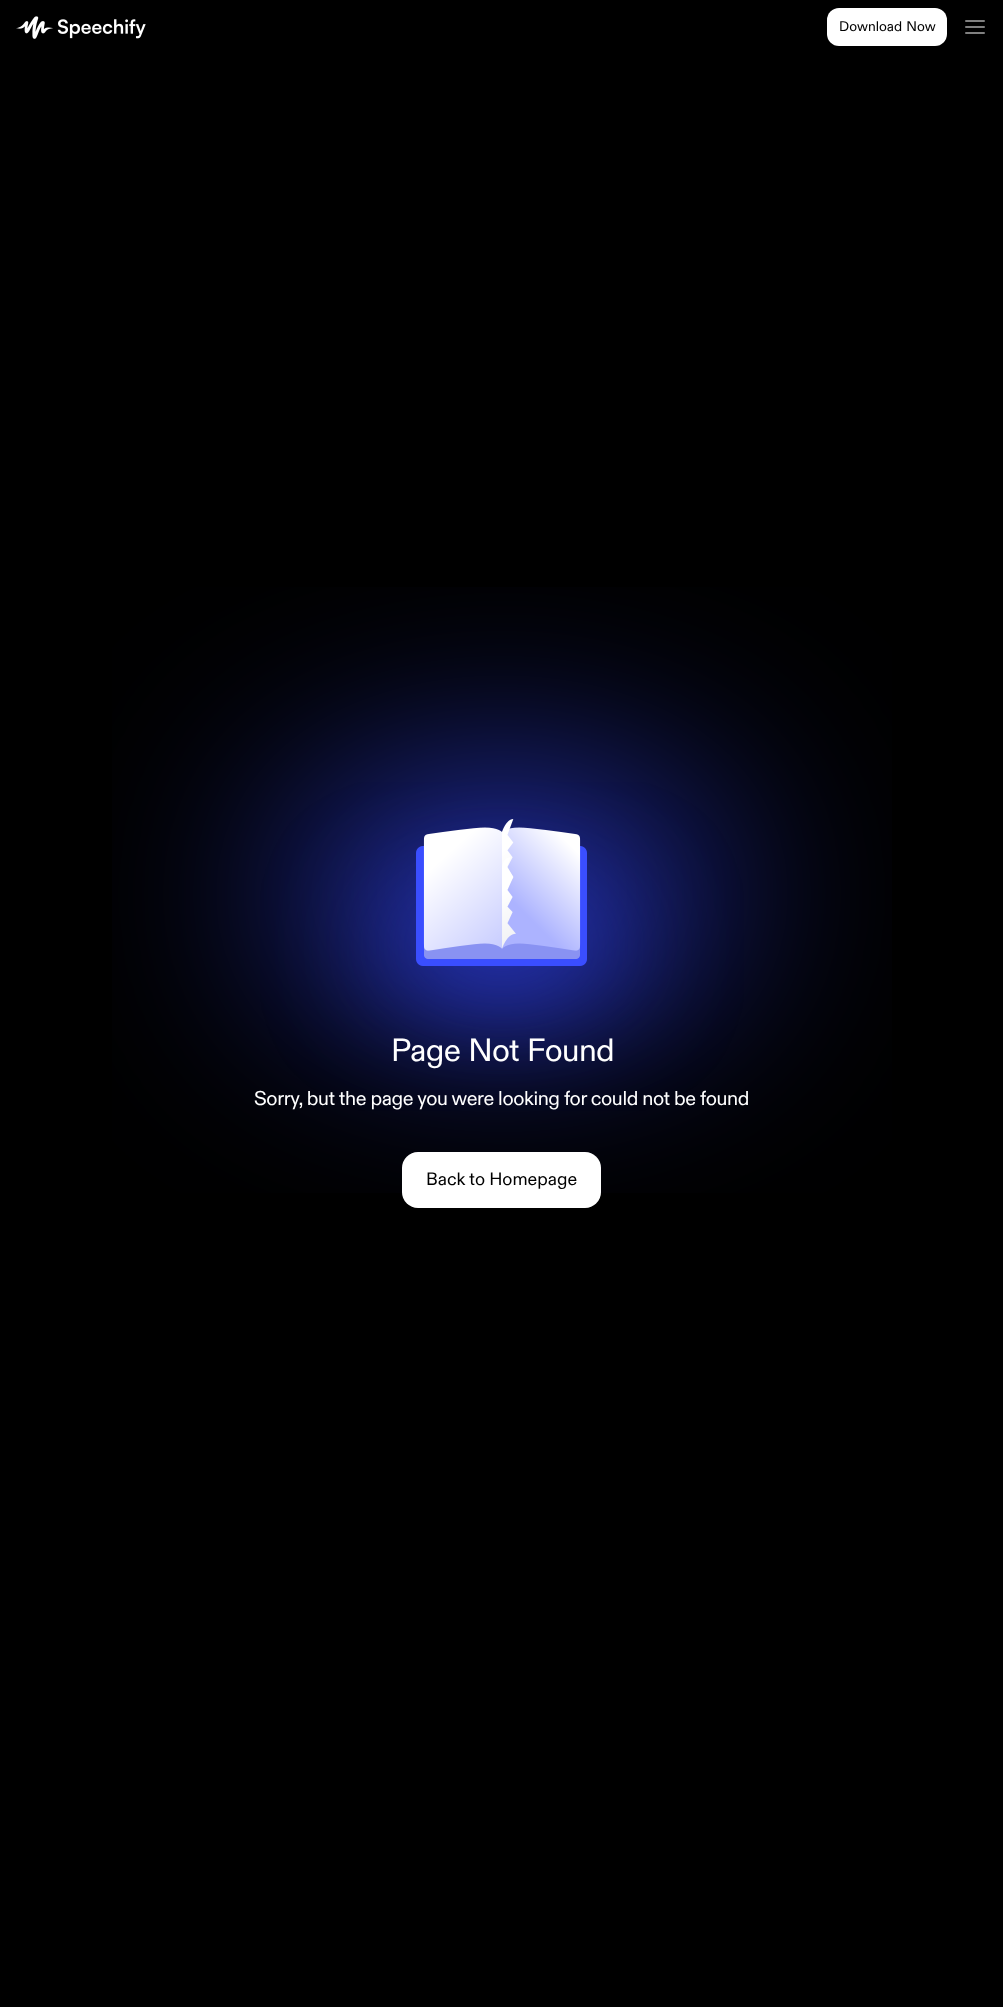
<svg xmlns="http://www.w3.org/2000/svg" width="1003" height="2007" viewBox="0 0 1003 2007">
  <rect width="100%" height="100%" fill="#000000"/>
  <image x="16" y="16" width="130" height="23" href="img1.png"/>
  <rect x="827" y="8" width="120" height="38" rx="12" fill="#ffffff"/>
  <text x="839" y="31" word-spacing="1" font-family="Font" font-size="14" fill="#000000">Download Now</text>
  <rect x="965" y="20" width="20" height="2" rx="1" fill="#808080"/>
  <rect x="965" y="26" width="20" height="2" rx="1" fill="#808080"/>
  <rect x="965" y="32" width="20" height="2" rx="1" fill="#808080"/>
  <image x="112" y="587" width="780" height="606" href="img2.png"/>
  <image x="416" y="819" width="171" height="147" href="img3.png"/>
  <text x="391" y="1061" word-spacing="1" font-family="Font" font-size="32" letter-spacing="-0.6" fill="#ffffff">Page Not Found</text>
  <text x="254" y="1105" font-family="Font" font-size="20" letter-spacing="-0.4" fill="#ffffff">Sorry, but the page you were looking for could not be found</text>
  <rect x="402" y="1152" width="199" height="56" rx="16" fill="#ffffff"/>
  <text x="426" y="1185" font-family="Font" font-size="18" fill="#000000">Back to Homepage</text>
</svg>
